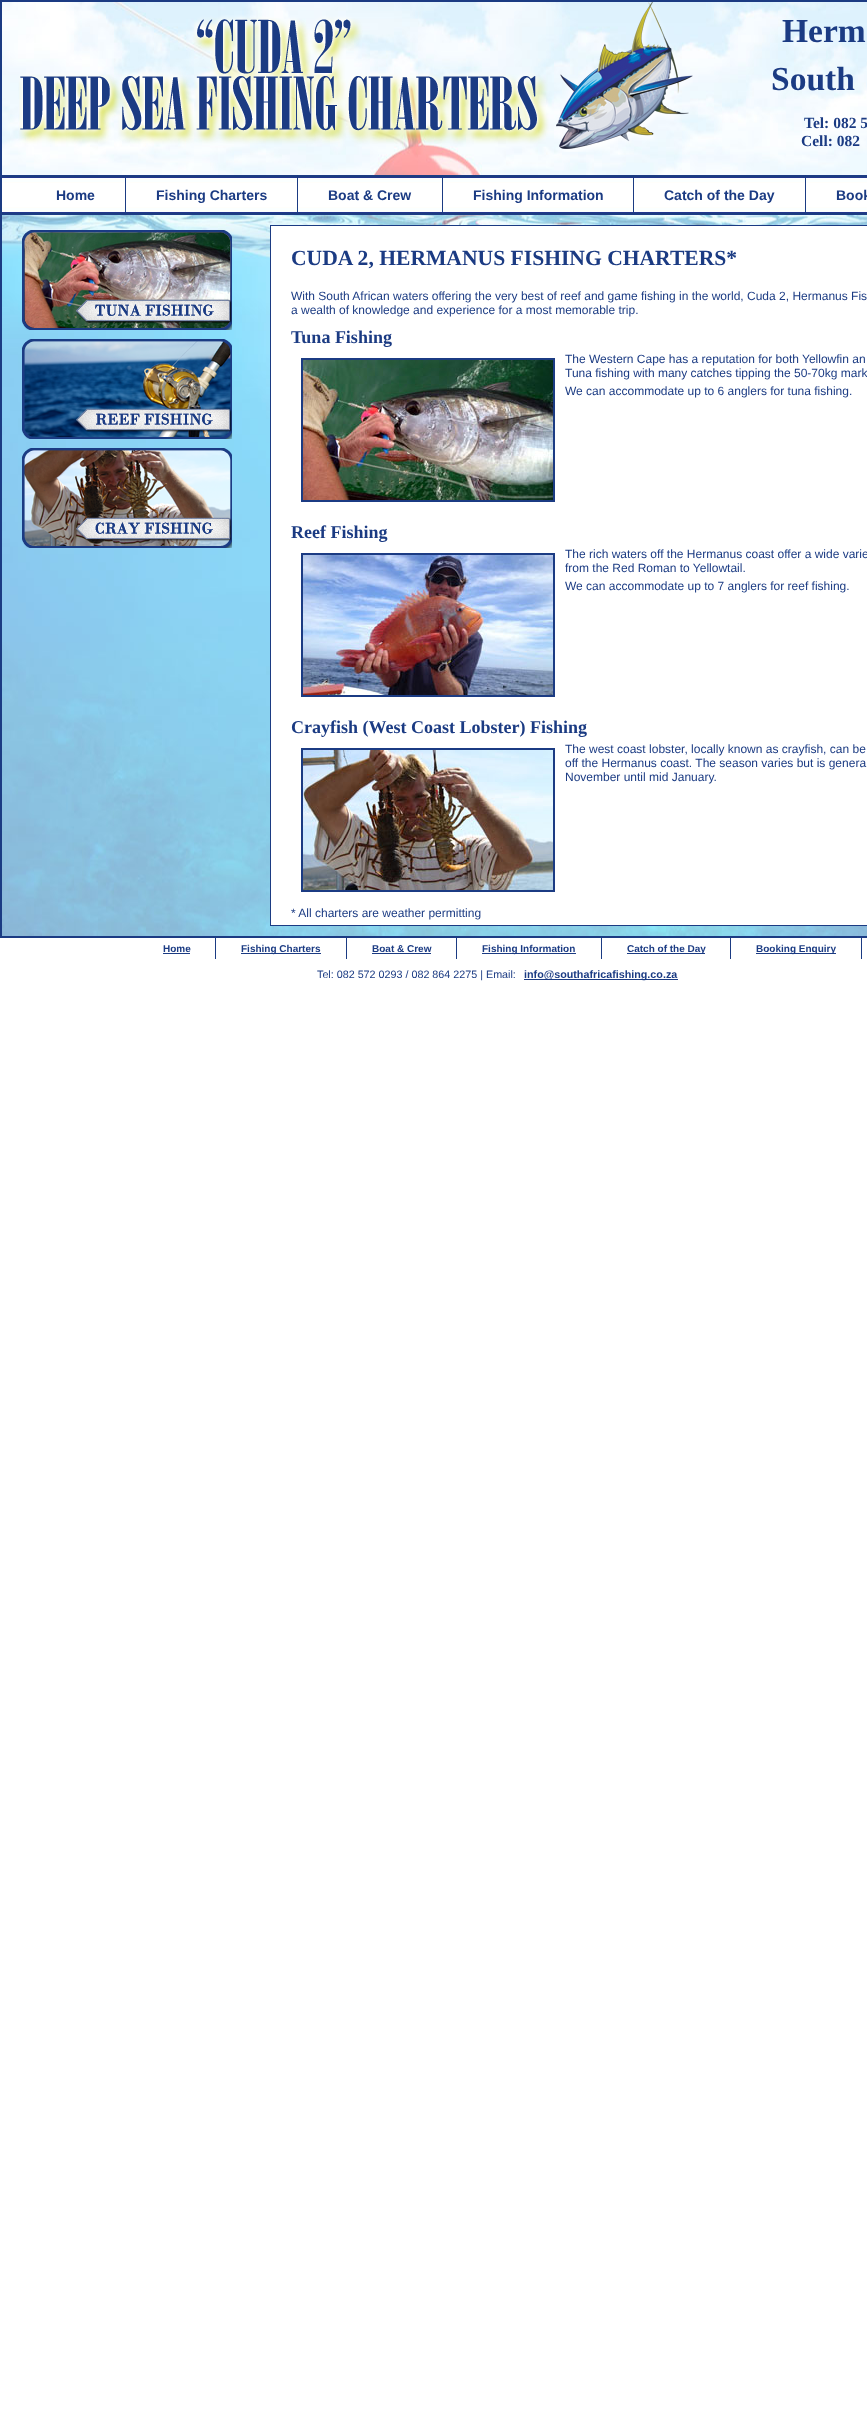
<svg xmlns="http://www.w3.org/2000/svg" width="867" height="2429" viewBox="0 0 867 2429">
  <rect width="100%" height="100%" fill="#ffffff"/>
  <image x="2" y="2" width="865" height="934" href="img1.png"/>
  <rect x="1" y="1" width="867" height="936" fill="none" stroke="#1b3b83" stroke-width="2"/>
  <image x="19" y="2" width="674" height="150" href="img2.png"/>
  <text x="782" y="42" font-family="Liberation Serif" font-size="33.5" font-weight="bold" fill="#1b3b83">Herm</text>
  <text x="771" y="90" font-family="Liberation Serif" font-size="33.5" font-weight="bold" fill="#1b3b83">South</text>
  <text x="804" y="128" font-family="Liberation Serif" font-size="15.5" font-weight="bold" fill="#1b3b83">Tel: 082 5</text>
  <text x="801" y="146" font-family="Liberation Serif" font-size="15.5" font-weight="bold" fill="#1b3b83">Cell: 082</text>
  <image x="2" y="175" width="865" height="40" href="img3.png"/>
  <rect x="125" y="175" width="1" height="40" fill="#1b3b83"/>
  <text x="56" y="200" font-family="Liberation Sans" font-size="14" font-weight="bold" fill="#1b3b83">Home</text>
  <rect x="297" y="175" width="1" height="40" fill="#1b3b83"/>
  <text x="156" y="200" font-family="Liberation Sans" font-size="14" font-weight="bold" fill="#1b3b83">Fishing Charters</text>
  <rect x="442" y="175" width="1" height="40" fill="#1b3b83"/>
  <text x="328" y="200" font-family="Liberation Sans" font-size="14" font-weight="bold" fill="#1b3b83">Boat &amp; Crew</text>
  <rect x="633" y="175" width="1" height="40" fill="#1b3b83"/>
  <text x="473" y="200" font-family="Liberation Sans" font-size="14" font-weight="bold" fill="#1b3b83">Fishing Information</text>
  <rect x="805" y="175" width="1" height="40" fill="#1b3b83"/>
  <text x="664" y="200" font-family="Liberation Sans" font-size="14" font-weight="bold" fill="#1b3b83">Catch of the Day</text>
  <text x="836" y="200" font-family="Liberation Sans" font-size="14" font-weight="bold" fill="#1b3b83">Book</text>
  <image x="22" y="230" width="210" height="100" href="img4.png"/>
  <image x="22" y="339" width="210" height="100" href="img5.png"/>
  <image x="22" y="448" width="210" height="100" href="img6.png"/>
  <rect x="270.5" y="225.5" width="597" height="700" fill="#ffffff" stroke="#1b3b83"/>
  <text x="291" y="265" font-family="Liberation Serif" font-size="21.6" font-weight="bold" fill="#1b3b83">CUDA 2, HERMANUS FISHING CHARTERS*</text>
  <text x="291" y="300" font-family="Liberation Sans" font-size="12" fill="#1b3b83">With South African waters offering the very best of reef and game fishing in the world, Cuda 2, Hermanus Fis</text>
  <text x="291" y="314" font-family="Liberation Sans" font-size="12" fill="#1b3b83">a wealth of knowledge and experience for a most memorable trip.</text>
  <text x="291" y="343" font-family="Liberation Serif" font-size="18" font-weight="bold" fill="#1b3b83">Tuna Fishing</text>
  <rect x="302" y="359" width="252" height="142" fill="none" stroke="#1b3b83" stroke-width="2"/>
  <image x="303" y="360" width="250" height="140" href="img7.png"/>
  <text x="565" y="363" font-family="Liberation Sans" font-size="12" fill="#1b3b83">The Western Cape has a reputation for both Yellowfin an</text>
  <text x="565" y="377" font-family="Liberation Sans" font-size="12" fill="#1b3b83">Tuna fishing with many catches tipping the 50-70kg mark</text>
  <text x="565" y="395" font-family="Liberation Sans" font-size="12" fill="#1b3b83">We can accommodate up to 6 anglers for tuna fishing.</text>
  <text x="291" y="538" font-family="Liberation Serif" font-size="18" font-weight="bold" fill="#1b3b83">Reef Fishing</text>
  <rect x="302" y="554" width="252" height="142" fill="none" stroke="#1b3b83" stroke-width="2"/>
  <image x="303" y="555" width="250" height="140" href="img8.png"/>
  <text x="565" y="558" font-family="Liberation Sans" font-size="12" fill="#1b3b83">The rich waters off the Hermanus coast offer a wide varie</text>
  <text x="565" y="572" font-family="Liberation Sans" font-size="12" fill="#1b3b83">from the Red Roman to Yellowtail.</text>
  <text x="565" y="590" font-family="Liberation Sans" font-size="12" fill="#1b3b83">We can accommodate up to 7 anglers for reef fishing.</text>
  <text x="291" y="733" font-family="Liberation Serif" font-size="18" font-weight="bold" fill="#1b3b83">Crayfish (West Coast Lobster) Fishing</text>
  <rect x="302" y="749" width="252" height="142" fill="none" stroke="#1b3b83" stroke-width="2"/>
  <image x="303" y="750" width="250" height="140" href="img9.png"/>
  <text x="565" y="753" font-family="Liberation Sans" font-size="12" fill="#1b3b83">The west coast lobster, locally known as crayfish, can be</text>
  <text x="565" y="767" font-family="Liberation Sans" font-size="12" fill="#1b3b83">off the Hermanus coast. The season varies but is genera</text>
  <text x="565" y="781" font-family="Liberation Sans" font-size="12" fill="#1b3b83">November until mid January.</text>
  <text x="291" y="917" font-family="Liberation Sans" font-size="12" fill="#1b3b83">* All charters are weather permitting</text>
  <rect x="215" y="938" width="1" height="21" fill="#1b3b83"/>
  <text x="163" y="952" font-family="Liberation Sans" font-size="10" font-weight="bold" fill="#1b3b83">Home</text>
  <rect x="163" y="953" width="27" height="1" fill="#1b3b83"/>
  <rect x="346" y="938" width="1" height="21" fill="#1b3b83"/>
  <rect x="241" y="953" width="80" height="1" fill="#1b3b83"/>
  <text x="241" y="952" font-family="Liberation Sans" font-size="10" font-weight="bold" fill="#1b3b83">Fishing Charters</text>
  <rect x="456" y="938" width="1" height="21" fill="#1b3b83"/>
  <text x="372" y="952" font-family="Liberation Sans" font-size="10" font-weight="bold" fill="#1b3b83">Boat &amp; Crew</text>
  <rect x="372" y="953" width="59" height="1" fill="#1b3b83"/>
  <rect x="601" y="938" width="1" height="21" fill="#1b3b83"/>
  <rect x="482" y="953" width="94" height="1" fill="#1b3b83"/>
  <text x="482" y="952" font-family="Liberation Sans" font-size="10" font-weight="bold" fill="#1b3b83">Fishing Information</text>
  <rect x="730" y="938" width="1" height="21" fill="#1b3b83"/>
  <rect x="627" y="953" width="78" height="1" fill="#1b3b83"/>
  <text x="627" y="952" font-family="Liberation Sans" font-size="10" font-weight="bold" fill="#1b3b83">Catch of the Day</text>
  <rect x="861" y="938" width="1" height="21" fill="#1b3b83"/>
  <rect x="756" y="953" width="80" height="1" fill="#1b3b83"/>
  <text x="756" y="952" font-family="Liberation Sans" font-size="10" font-weight="bold" fill="#1b3b83">Booking Enquiry</text>
  <text x="317" y="978" font-family="Liberation Sans" font-size="10.75" fill="#1b3b83">Tel: 082 572 0293 / 082 864 2275 | Email:</text>
  <rect x="524" y="979" width="154" height="1" fill="#1b3b83"/>
  <text x="524" y="978" font-family="Liberation Sans" font-size="10.75" font-weight="bold" fill="#1b3b83">info@southafricafishing.co.za</text>
</svg>
